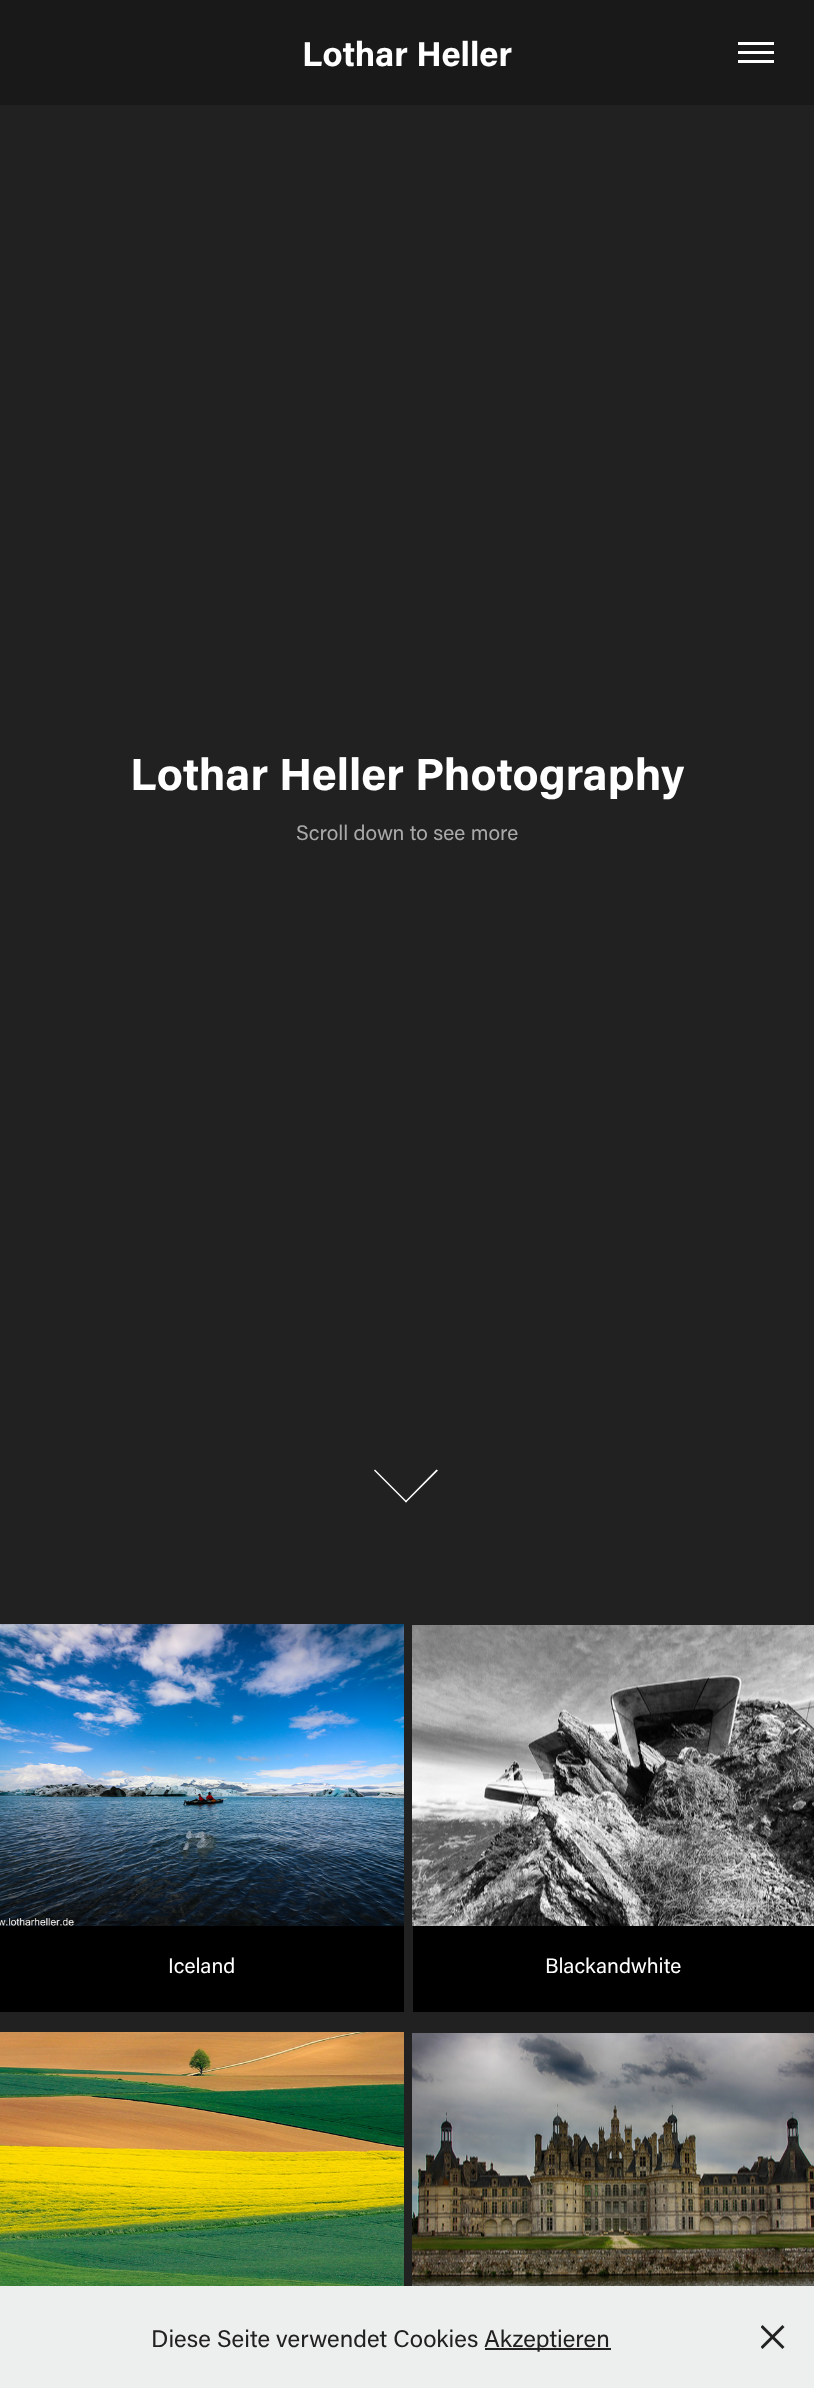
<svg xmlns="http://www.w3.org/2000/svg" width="814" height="2388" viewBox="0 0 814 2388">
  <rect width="100%" height="100%" fill="#212121"/>
  <rect x="0" y="0" width="814" height="105" fill="#191919"/>
  <text x="302" y="66" font-family="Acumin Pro" font-size="34.5" font-weight="bold" fill="#ffffff">Lothar Heller</text>
  <rect x="738" y="42" width="36" height="3" fill="#ffffff"/>
  <rect x="738" y="51" width="36" height="3" fill="#ffffff"/>
  <rect x="738" y="60" width="36" height="3" fill="#ffffff"/>
  <text x="130" y="790" font-family="Acumin Pro" font-size="45" font-weight="bold" fill="#ffffff">Lothar Heller Photography</text>
  <text x="296" y="840" font-family="Acumin Pro" font-size="21" fill="#a9a9a9">Scroll down to see more</text>
  <path d="M436.5 1469.5L438 1470.5L406 1502.5L405 1501.5Z" fill="#ffffff"/>
  <path d="M375 1469.5L407 1501.5L406 1502.5L374 1470.5Z" fill="#ffffff"/>
  <image x="0" y="1624" width="404" height="302" href="img1.png"/>
  <rect x="0" y="1926" width="404" height="86" fill="#000000"/>
  <text x="168" y="1973" font-family="Acumin Pro" font-size="21" fill="#ffffff">Iceland</text>
  <image x="412" y="1625" width="402" height="301" href="img2.png"/>
  <rect x="413" y="1926" width="401" height="86" fill="#000000"/>
  <text x="545" y="1973" font-family="Acumin Pro" font-size="21" fill="#ffffff">Blackandwhite</text>
  <image x="0" y="2032" width="404" height="254" href="img3.png"/>
  <image x="412" y="2033" width="402" height="253" href="img4.png"/>
  <rect x="0" y="2286" width="814" height="102" fill="#edeeee"/>
  <text x="151" y="2347" font-family="Acumin Pro" font-size="24" fill="#212121">Diese Seite verwendet Cookies</text>
  <rect x="485" y="2348" width="126" height="2" fill="#212121"/>
  <text x="484" y="2347" font-family="Acumin Pro" font-size="24" fill="#212121">Akzeptieren</text>
  <image x="761" y="2325" width="24" height="24" href="img5.png"/>
</svg>
